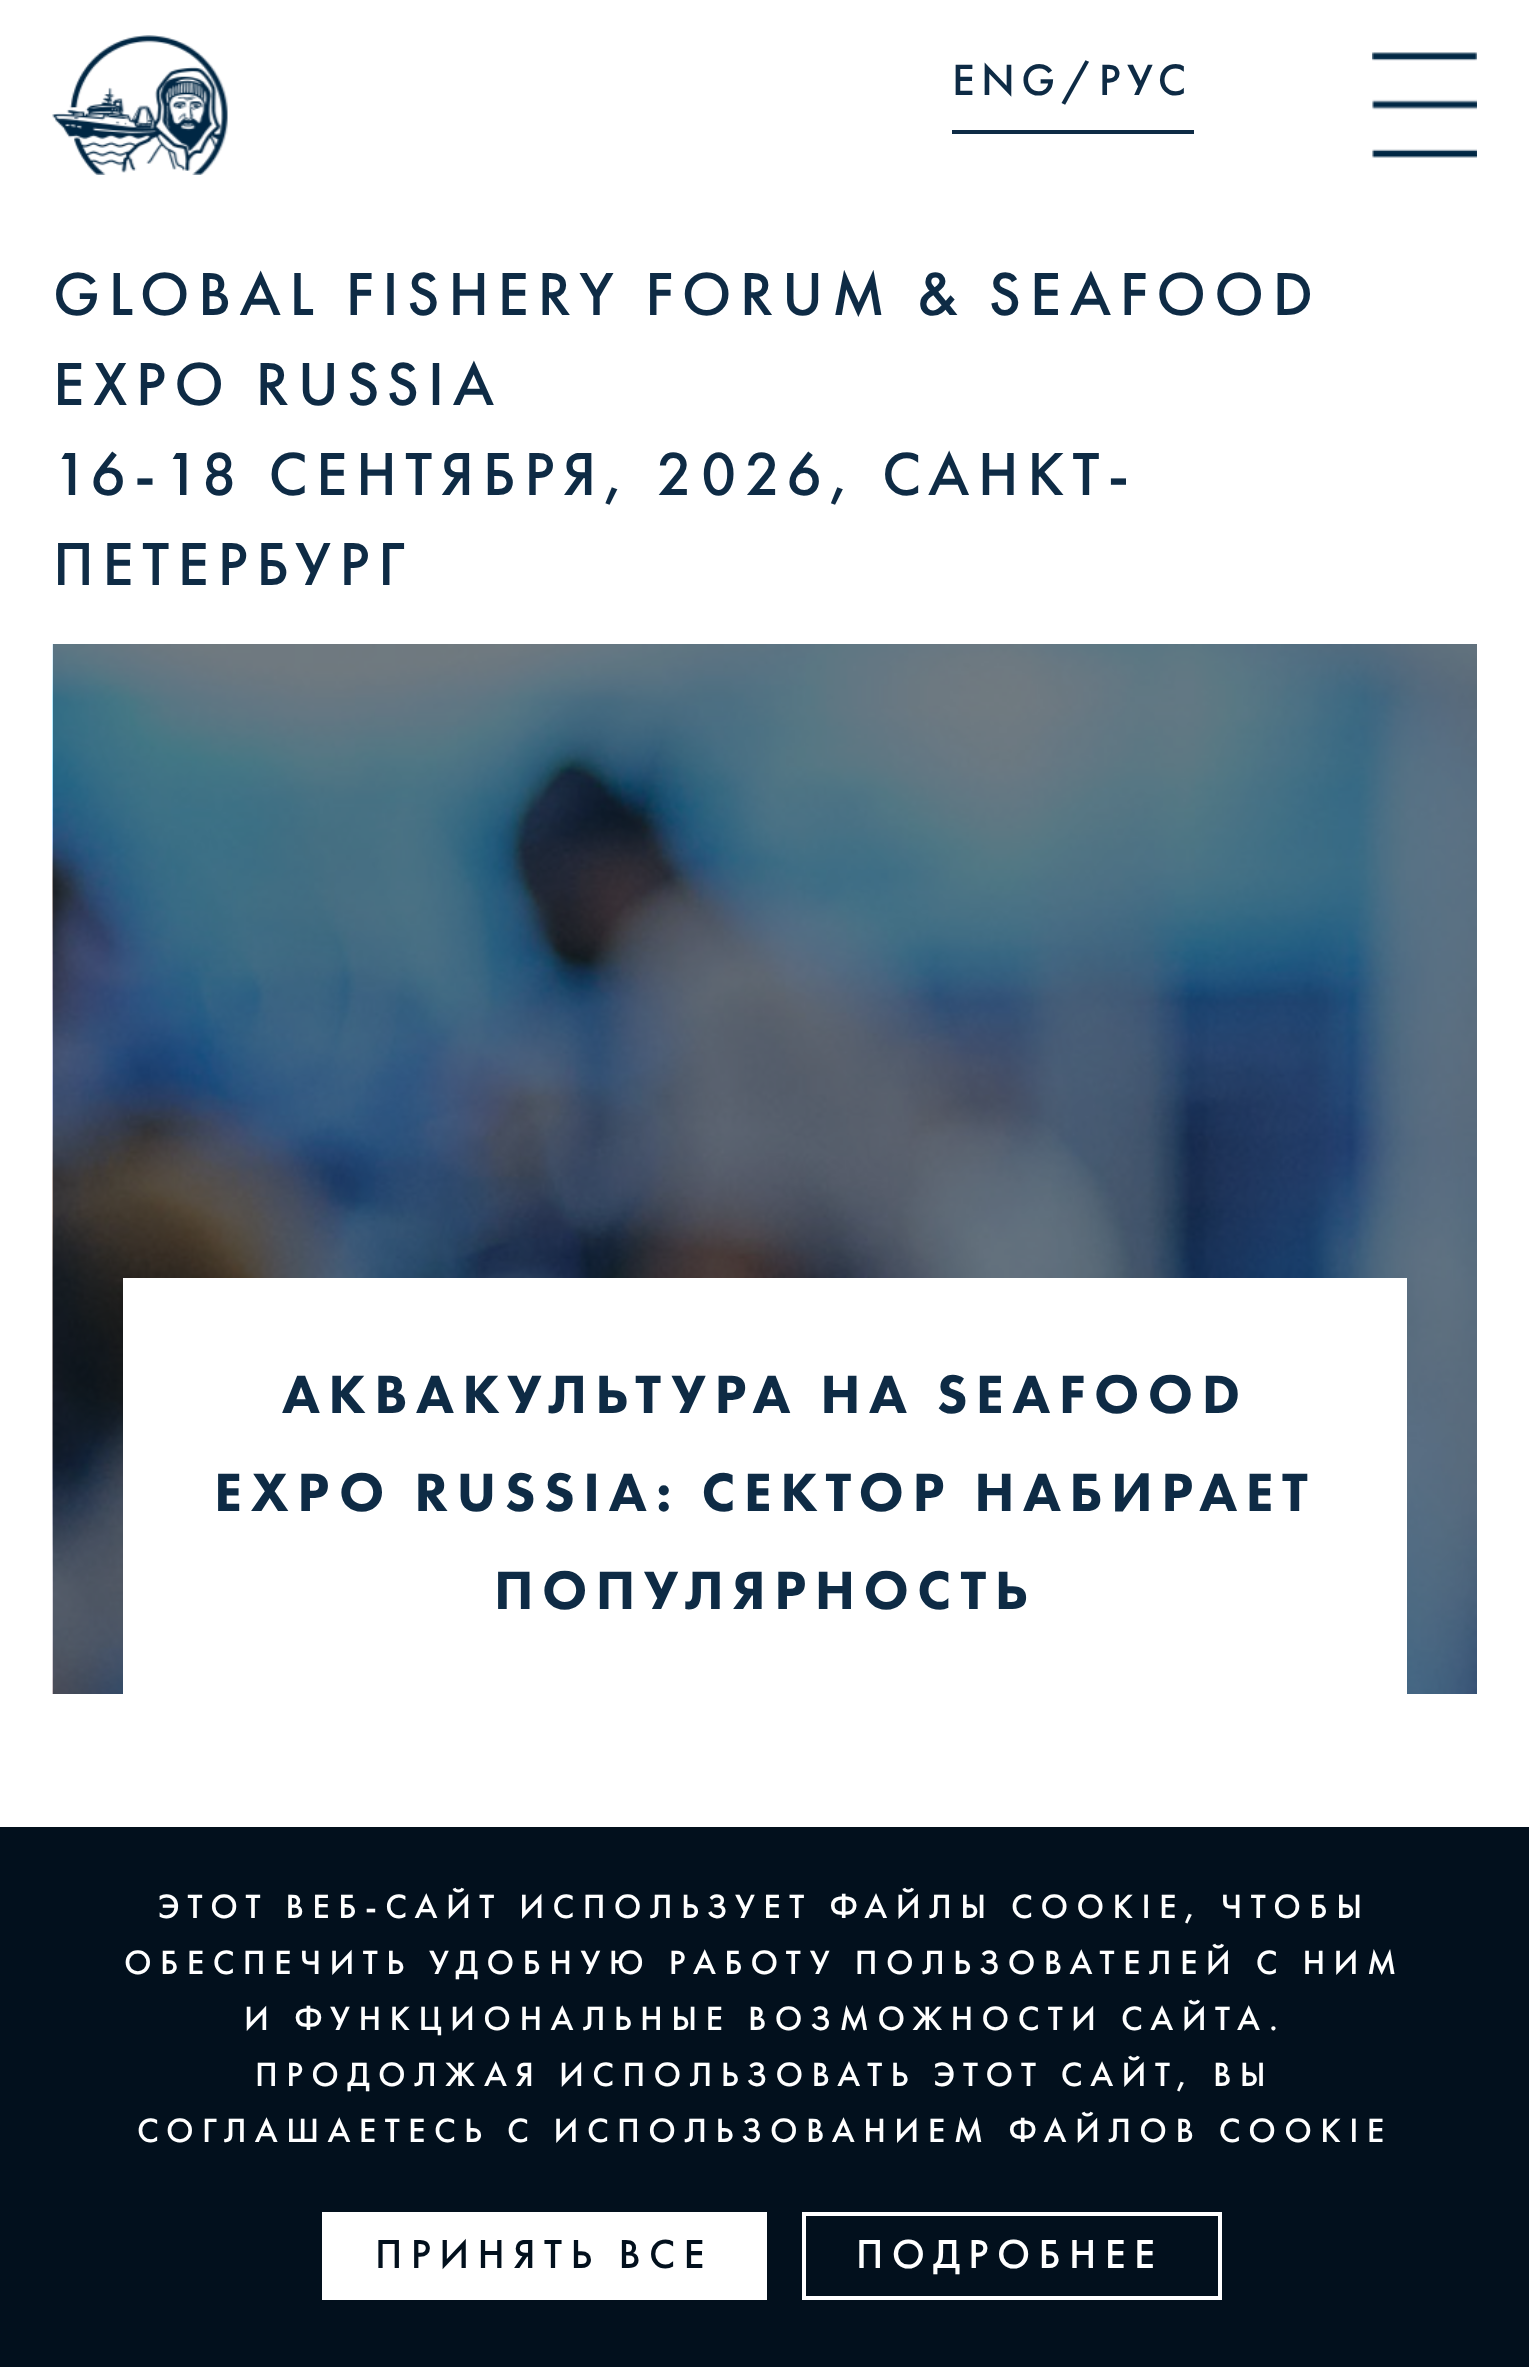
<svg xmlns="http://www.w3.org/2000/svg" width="1529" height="2367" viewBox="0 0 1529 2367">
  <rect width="100%" height="100%" fill="#ffffff"/>
  <image x="52" y="35" width="176" height="140" href="img1.png"/>
  <rect x="952" y="130" width="242" height="4" fill="#0e2b45"/>
  <text x="952" y="95" font-family="Futura PT" font-size="45.5" font-weight="500" letter-spacing="6.25" fill="#0e2b45">ENG/РУС</text>
  <image x="1372" y="52" width="105" height="106" href="img2.png"/>
  <text x="53" y="315" font-family="Futura PT" font-size="63" font-weight="500" letter-spacing="8.4" fill="#0e2b45">GLOBAL FISHERY FORUM &amp; SEAFOOD</text>
  <text x="53" y="405" font-family="Futura PT" font-size="63" font-weight="500" letter-spacing="8.4" fill="#0e2b45">EXPO RUSSIA</text>
  <text x="53" y="495" font-family="Futura PT" font-size="63" font-weight="500" letter-spacing="8.4" fill="#0e2b45">16-18 СЕНТЯБРЯ, 2026, САНКТ-</text>
  <text x="53" y="585" font-family="Futura PT" font-size="63" font-weight="500" letter-spacing="8.4" fill="#0e2b45">ПЕТЕРБУРГ</text>
  <image x="52" y="644" width="1425" height="1050" href="img3.png"/>
  <rect x="123" y="1278" width="1284" height="416" fill="#ffffff"/>
  <text x="282" y="1413" font-family="Futura PT" font-size="56" font-weight="900" letter-spacing="8.4" fill="#0e2b45">АКВАКУЛЬТУРА НА SEAFOOD</text>
  <text x="214" y="1511" font-family="Futura PT" font-size="56" font-weight="900" letter-spacing="8.4" fill="#0e2b45">EXPO RUSSIA: СЕКТОР НАБИРАЕТ</text>
  <text x="494" y="1609" font-family="Futura PT" font-size="56" font-weight="900" letter-spacing="8.4" fill="#0e2b45">ПОПУЛЯРНОСТЬ</text>
  <rect x="0" y="1827" width="1529" height="540" fill="#02101d"/>
  <text x="158" y="1918" font-family="Futura PT" font-size="35" font-weight="500" letter-spacing="8.4" fill="#ffffff">ЭТОТ ВЕБ-САЙТ ИСПОЛЬЗУЕТ ФАЙЛЫ COOKIE, ЧТОБЫ</text>
  <text x="124" y="1974" font-family="Futura PT" font-size="35" font-weight="500" letter-spacing="8.4" fill="#ffffff">ОБЕСПЕЧИТЬ УДОБНУЮ РАБОТУ ПОЛЬЗОВАТЕЛЕЙ С НИМ</text>
  <text x="244" y="2030" font-family="Futura PT" font-size="35" font-weight="500" letter-spacing="8.4" fill="#ffffff">И ФУНКЦИОНАЛЬНЫЕ ВОЗМОЖНОСТИ САЙТА.</text>
  <text x="255" y="2086" font-family="Futura PT" font-size="35" font-weight="500" letter-spacing="8.4" fill="#ffffff">ПРОДОЛЖАЯ ИСПОЛЬЗОВАТЬ ЭТОТ САЙТ, ВЫ</text>
  <text x="137" y="2142" font-family="Futura PT" font-size="35" font-weight="500" letter-spacing="8.4" fill="#ffffff">СОГЛАШАЕТЕСЬ С ИСПОЛЬЗОВАНИЕМ ФАЙЛОВ COOKIE</text>
  <rect x="322" y="2212" width="445" height="88" fill="#ffffff"/>
  <text x="375" y="2268" font-family="Futura PT" font-size="42" font-weight="500" letter-spacing="8.4" fill="#02101d">ПРИНЯТЬ ВСЕ</text>
  <rect x="804" y="2214" width="416" height="84" fill="none" stroke="#ffffff" stroke-width="4"/>
  <text x="856" y="2268" font-family="Futura PT" font-size="42" font-weight="500" letter-spacing="8.4" fill="#ffffff">ПОДРОБНЕЕ</text>
</svg>
